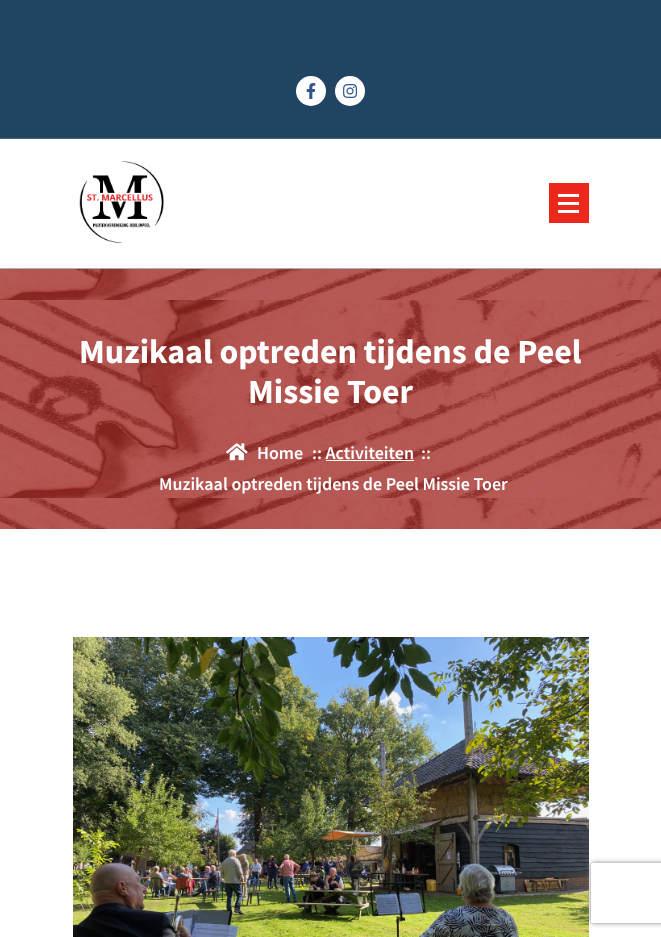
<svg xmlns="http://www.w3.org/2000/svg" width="661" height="937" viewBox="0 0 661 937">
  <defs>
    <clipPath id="clip1"><path d="M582 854H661V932H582ZM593 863H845C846 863 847 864 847 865V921C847 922 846 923 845 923H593C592 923 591 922 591 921V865C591 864 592 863 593 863Z" clip-rule="evenodd"/></clipPath>
    <filter id="blur1" x="-50%" y="-200%" width="200%" height="500%"><feGaussianBlur stdDeviation="2.5"/></filter>
  </defs>
  <rect width="100%" height="100%" fill="#ffffff"/>
  <rect x="0" y="0" width="661" height="138" fill="#214462"/>
  <rect x="0" y="138" width="661" height="1" fill="#4e6172"/>
  <circle cx="311" cy="91" r="15" fill="#ffffff"/>
  <image x="306" y="83" width="10" height="16" href="img1.png"/>
  <circle cx="350" cy="91" r="15" fill="#ffffff"/>
  <image x="343" y="84" width="15" height="14" href="img2.png"/>
  <rect x="0" y="268" width="661" height="1" fill="#a7acb1"/>
  <image x="79" y="161" width="85" height="83" href="img3.png"/>
  <rect x="549" y="183" width="40" height="40" fill="#ec281c"/>
  <rect x="558" y="194" width="21" height="3" fill="#ffffff"/>
  <rect x="558" y="202" width="21" height="3" fill="#ffffff"/>
  <rect x="558" y="210" width="21" height="3" fill="#ffffff"/>
  <image x="0" y="269" width="661" height="260" href="img4.png"/>
  <text x="79" y="363" font-family="Source Sans Pro" font-size="33.9" font-weight="bold" fill="#ffffff">Muzikaal optreden tijdens de Peel</text>
  <text x="248" y="403" font-family="Source Sans Pro" font-size="33.9" font-weight="bold" fill="#ffffff">Missie Toer</text>
  <image x="226" y="443" width="22" height="18" href="img5.png"/>
  <text x="257" y="459" font-family="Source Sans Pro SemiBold" font-size="18" font-weight="600" fill="#ffffff">Home</text>
  <text x="312" y="459" font-family="Source Sans Pro SemiBold" font-size="18" font-weight="600" fill="#ffffff">:: Activiteiten</text>
  <text x="421" y="459" font-family="Source Sans Pro SemiBold" font-size="18" font-weight="600" fill="#ffffff">::</text>
  <rect x="326" y="460" width="88" height="1" fill="#ffffff"/>
  <text x="159" y="490" font-family="Source Sans Pro SemiBold" font-size="18" font-weight="600" fill="#ffffff">Muzikaal optreden tijdens de Peel Missie Toer</text>
  <image x="73" y="637" width="516" height="300" href="img6.png"/>
  <g clip-path="url(#clip1)">
    <rect x="591" y="863" width="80" height="60" rx="2" fill="#808080" filter="url(#blur1)"/>
  </g>
</svg>
